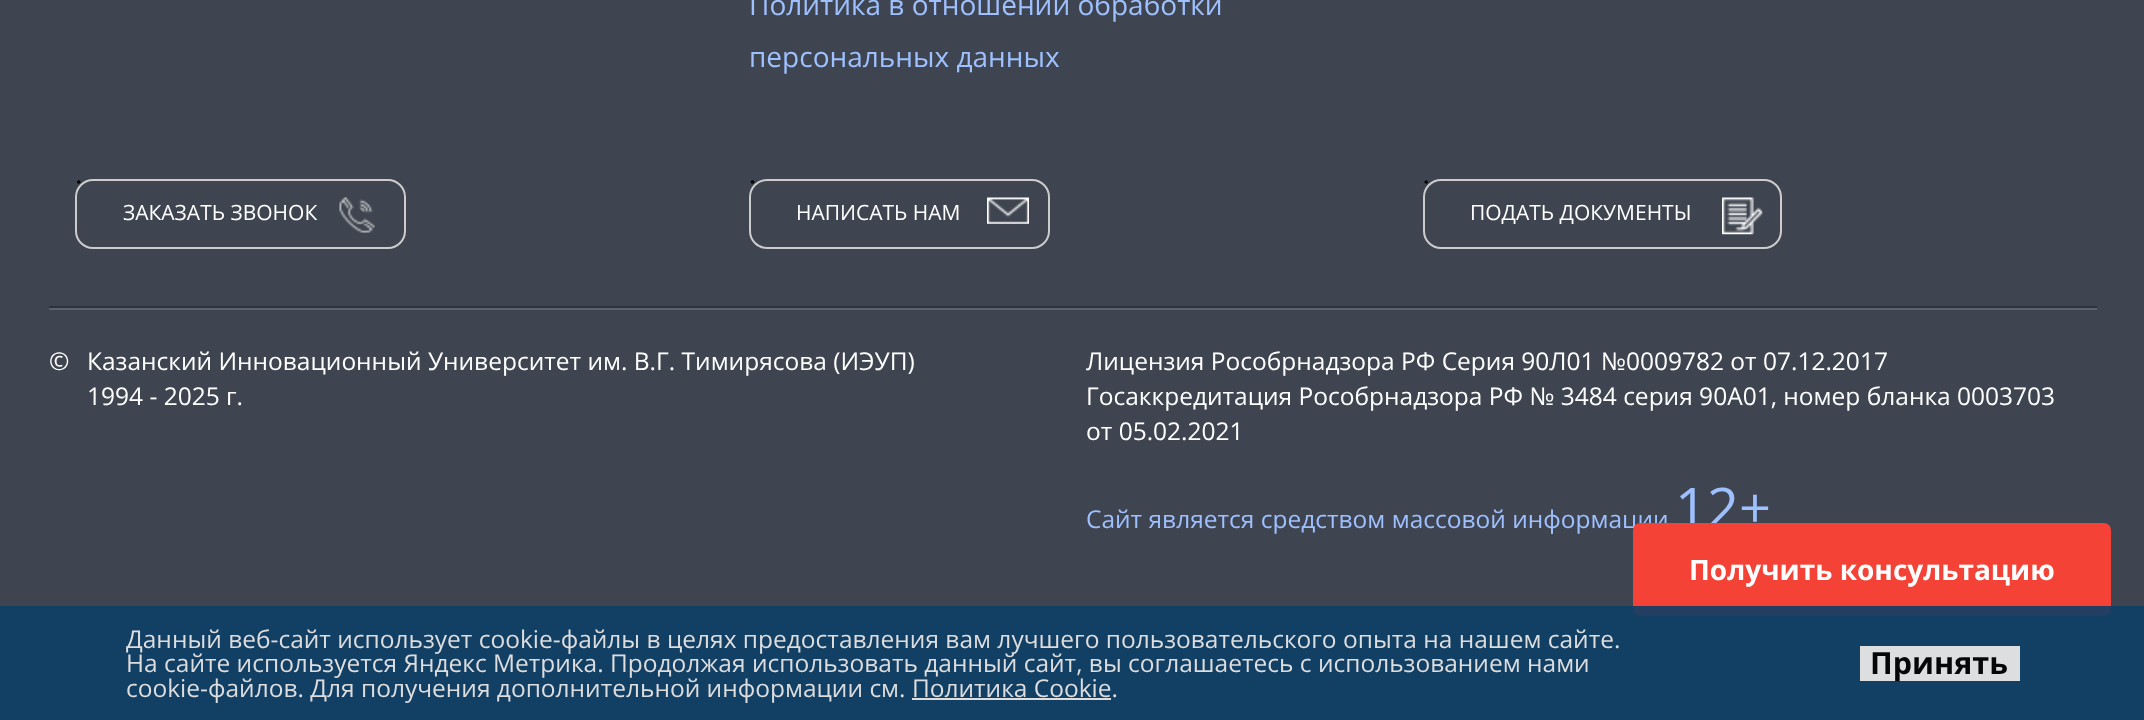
<svg xmlns="http://www.w3.org/2000/svg" width="2144" height="720" viewBox="0 0 2144 720">
  <rect width="100%" height="100%" fill="#3f4550"/>
  <rect x="49" y="306" width="2048" height="2" fill="#2e323a"/>
  <text x="749" y="15" font-family="Open Sans" font-size="28" fill="#9ec0ff">Политика в отношении обработки</text>
  <text x="749" y="67" font-family="Open Sans" font-size="28" fill="#9ec0ff">персональных данных</text>
  <image x="339" y="197" width="36" height="36" href="img1.png"/>
  <rect x="76" y="180" width="329" height="68" rx="17" fill="none" stroke="#cccccc" stroke-width="2"/>
  <circle cx="78.8" cy="182" r="1.8" fill="#000000"/>
  <text x="123" y="220" font-family="Open Sans" font-size="21" fill="#ffffff">ЗАКАЗАТЬ ЗВОНОК</text>
  <image x="987" y="197" width="42" height="27" href="img2.png"/>
  <rect x="750" y="180" width="299" height="68" rx="17" fill="none" stroke="#cccccc" stroke-width="2"/>
  <circle cx="752.5" cy="182" r="1.8" fill="#000000"/>
  <text x="796" y="220" font-family="Open Sans" font-size="21" fill="#ffffff">НАПИСАТЬ НАМ</text>
  <image x="1722" y="197" width="41" height="38" href="img3.png"/>
  <rect x="1424" y="180" width="357" height="68" rx="17" fill="none" stroke="#cccccc" stroke-width="2"/>
  <circle cx="1426.2" cy="182" r="1.8" fill="#000000"/>
  <text x="1470" y="220" font-family="Open Sans" font-size="21" fill="#ffffff">ПОДАТЬ ДОКУМЕНТЫ</text>
  <rect x="49" y="308" width="2048" height="2" fill="#5a6272"/>
  <text x="49" y="370" font-family="Open Sans" font-size="24.5" fill="#ffffff">©</text>
  <text x="87" y="370" font-family="Open Sans" font-size="24.5" fill="#ffffff">Казанский Инновационный Университет им. В.Г. Тимирясова (ИЭУП)</text>
  <text x="87" y="405" font-family="Open Sans" font-size="24.5" fill="#ffffff">1994 - 2025 г.</text>
  <text x="1086" y="370" font-family="Open Sans" font-size="24.5" fill="#ffffff">Лицензия Рособрнадзора РФ Серия 90Л01 №0009782 от 07.12.2017</text>
  <text x="1086" y="405" font-family="Open Sans" font-size="24.5" fill="#ffffff">Госаккредитация Рособрнадзора РФ № 3484 серия 90А01, номер бланка 0003703</text>
  <text x="1086" y="440" font-family="Open Sans" font-size="24.5" fill="#ffffff">от 05.02.2021</text>
  <text x="1086" y="528" font-family="Open Sans" font-size="24.5" fill="#9ec0ff">Сайт является средством массовой информации</text>
  <text x="1675" y="528" font-family="Open Sans" font-size="56" fill="#9ec0ff">12+</text>
  <rect x="1633" y="523" width="478" height="93" rx="7" fill="#f44336"/>
  <text x="1689" y="580" font-family="Open Sans" font-size="28" font-weight="bold" fill="#ffffff">Получить консультацию</text>
  <rect x="0" y="606" width="2144" height="114" fill="#0d3e66" fill-opacity="0.9"/>
  <text x="126" y="648" font-family="Open Sans" font-size="24.5" fill="#ddddde">Данный веб-сайт использует cookie-файлы в целях предоставления вам лучшего пользовательского опыта на нашем сайте.</text>
  <text x="126" y="672" font-family="Open Sans" font-size="24.5" fill="#ddddde">На сайте используется Яндекс Метрика. Продолжая использовать данный сайт, вы соглашаетесь с использованием нами</text>
  <text x="126" y="697" font-family="Open Sans" font-size="24.5" fill="#ddddde">cookie-файлов. Для получения дополнительной информации см. Политика Cookie.</text>
  <rect x="912" y="698" width="199" height="2" fill="#ddddde"/>
  <rect x="1860" y="646" width="160" height="35" fill="#dddedf"/>
  <text x="1870" y="674" font-family="Open Sans" font-size="30.5" font-weight="bold" fill="#060708">Принять</text>
</svg>
